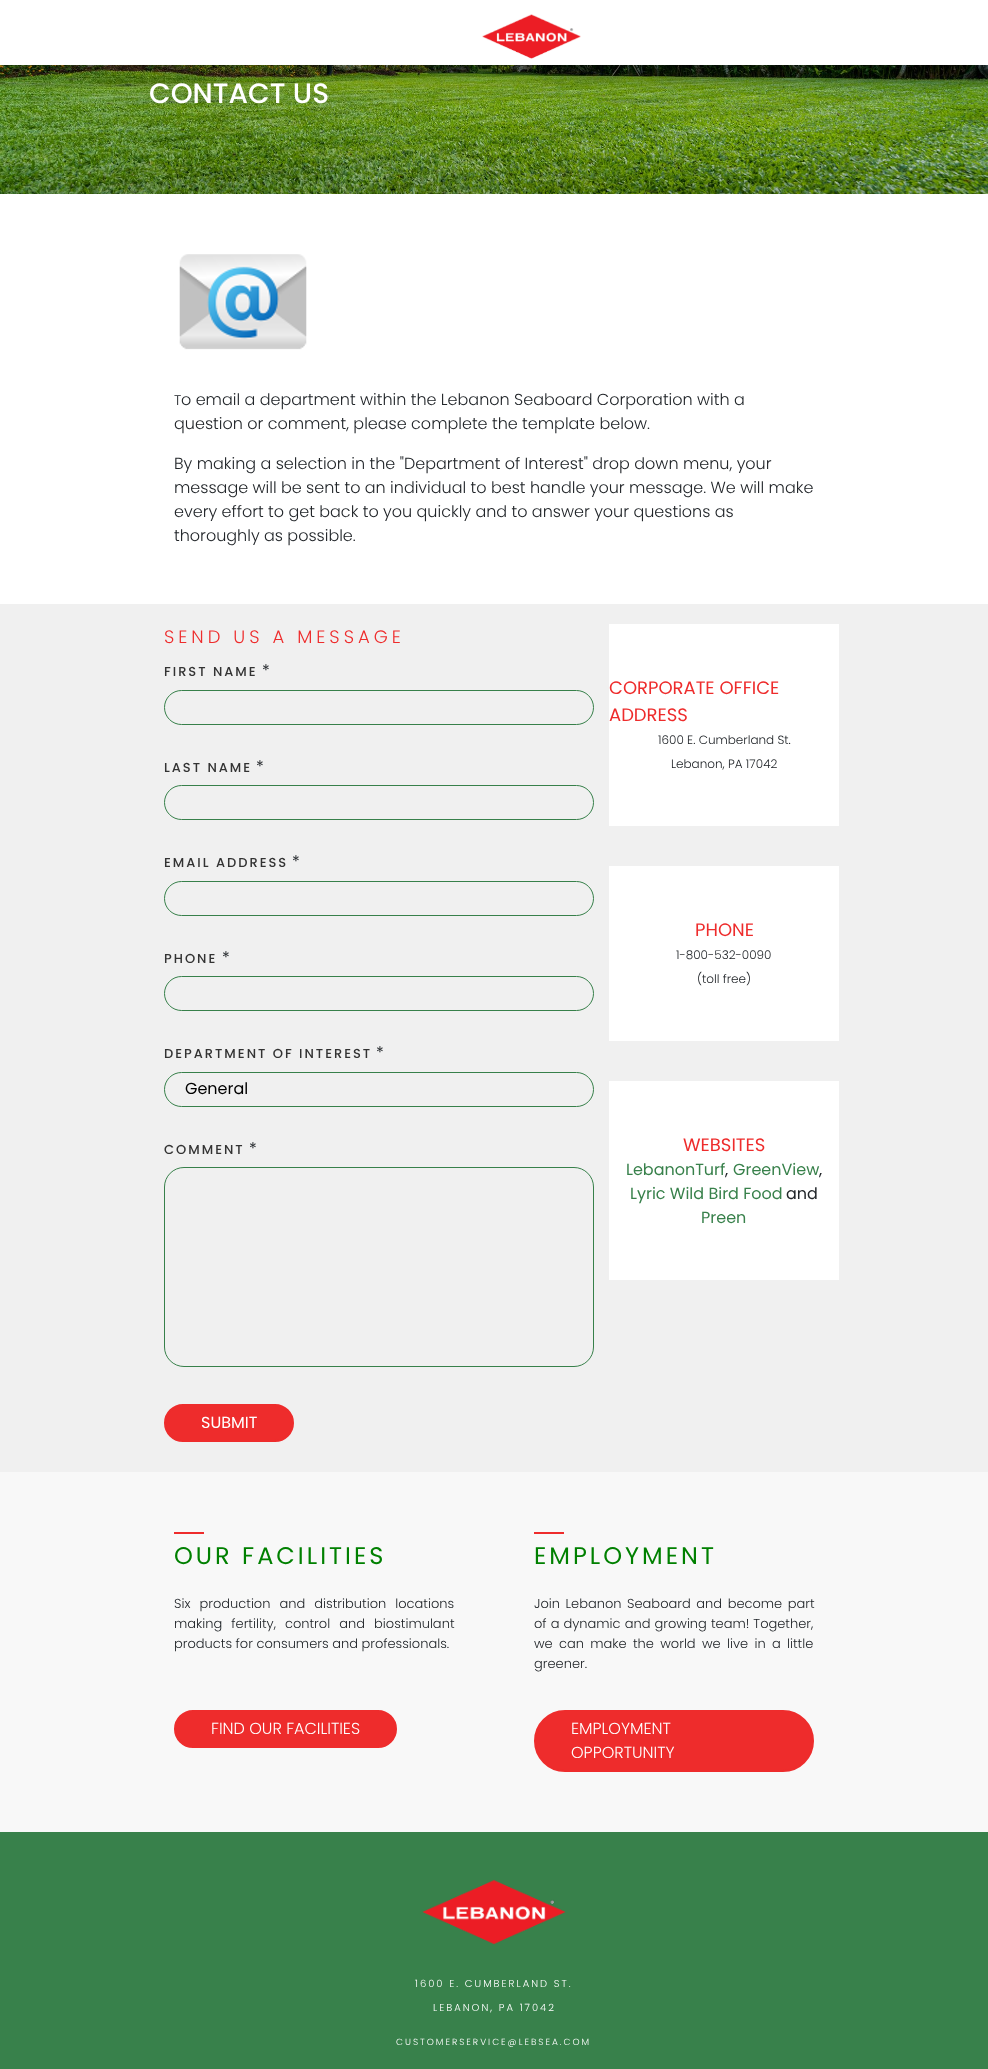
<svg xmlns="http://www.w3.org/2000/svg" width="988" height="2069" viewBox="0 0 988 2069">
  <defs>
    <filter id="blur1" x="-50%" y="-200%" width="200%" height="500%"><feGaussianBlur stdDeviation="12.5"/></filter>
  </defs>
  <rect width="100%" height="100%" fill="#ffffff"/>
  <image x="0" y="65" width="988" height="129" href="img2.png"/>
  <rect x="-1" y="-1" width="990" height="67" fill="#000000" fill-opacity="0.49" filter="url(#blur1)"/>
  <rect x="0" y="0" width="988" height="65" fill="#ffffff"/>
  <image x="482" y="14" width="99" height="45" href="img1.png"/>
  <text x="149" y="103" font-family="Poppins" font-size="28" font-weight="500" fill="#ffffff">CONTACT US</text>
  <image x="179" y="254" width="128" height="96" href="img3.png"/>
  <text x="174" y="405" font-family="Poppins" font-size="14" font-weight="300" fill="#212529">T</text>
  <text x="181" y="405" font-family="Poppins" font-size="16" font-weight="300" fill="#212529">o email a department within the Lebanon Seaboard Corporation with a</text>
  <text x="174" y="429" font-family="Poppins" font-size="16" font-weight="300" fill="#212529">question or comment, please complete the template below.</text>
  <text x="174" y="469" font-family="Poppins" font-size="16" font-weight="300" fill="#212529">By making a selection in the "Department of Interest" drop down menu, your</text>
  <text x="174" y="493" font-family="Poppins" font-size="16" font-weight="300" fill="#212529">message will be sent to an individual to best handle your message. We will make</text>
  <text x="174" y="517" font-family="Poppins" font-size="16" font-weight="300" fill="#212529">every effort to get back to you quickly and to answer your questions as</text>
  <text x="174" y="541" font-family="Poppins" font-size="16" font-weight="300" fill="#212529">thoroughly as possible.</text>
  <rect x="0" y="604" width="988" height="868" fill="#f0f0f0"/>
  <text x="164" y="643" font-family="Poppins" font-size="18" font-weight="300" letter-spacing="4" fill="#ee2c2c">SEND US A MESSAGE</text>
  <text x="164" y="676" font-family="Poppins" font-size="13" font-weight="500" letter-spacing="2" fill="#333333">FIRST NAME</text>
  <text x="262" y="676" font-family="Poppins" font-size="16" fill="#212529">*</text>
  <rect x="164.5" y="690.5" width="429" height="34" rx="17" fill="none" stroke="#37804a"/>
  <text x="164" y="772" font-family="Poppins" font-size="13" font-weight="500" letter-spacing="2" fill="#333333">LAST NAME</text>
  <text x="256" y="772" font-family="Poppins" font-size="16" fill="#212529">*</text>
  <rect x="164.5" y="785.5" width="429" height="34" rx="17" fill="none" stroke="#37804a"/>
  <text x="164" y="867" font-family="Poppins" font-size="13" font-weight="500" letter-spacing="2" fill="#333333">EMAIL ADDRESS</text>
  <text x="292" y="867" font-family="Poppins" font-size="16" fill="#212529">*</text>
  <rect x="164.5" y="881.5" width="429" height="34" rx="17" fill="none" stroke="#37804a"/>
  <text x="164" y="963" font-family="Poppins" font-size="13" font-weight="500" letter-spacing="2" fill="#333333">PHONE</text>
  <text x="222" y="963" font-family="Poppins" font-size="16" fill="#212529">*</text>
  <rect x="164.5" y="976.5" width="429" height="34" rx="17" fill="none" stroke="#37804a"/>
  <text x="164" y="1058" font-family="Poppins" font-size="13" font-weight="500" letter-spacing="2" fill="#333333">DEPARTMENT OF INTEREST</text>
  <text x="376" y="1058" font-family="Poppins" font-size="16" fill="#212529">*</text>
  <rect x="164.5" y="1072.5" width="429" height="34" rx="17" fill="none" stroke="#37804a"/>
  <text x="185" y="1094" font-family="Poppins" font-size="16" fill="#000000">General</text>
  <text x="164" y="1154" font-family="Poppins" font-size="13" font-weight="500" letter-spacing="2" fill="#333333">COMMENT</text>
  <text x="249" y="1154" font-family="Poppins" font-size="16" fill="#212529">*</text>
  <rect x="164.5" y="1167.5" width="429" height="199" rx="19.5" fill="none" stroke="#37804a"/>
  <rect x="165" y="1405" width="128" height="36" rx="18" fill="#ee2c2c" stroke="#ee2c2c" stroke-width="2"/>
  <text x="201" y="1428" font-family="Poppins" font-size="16" fill="#ffffff">SUBMIT</text>
  <rect x="609" y="624" width="230" height="202" fill="#ffffff"/>
  <text x="609" y="694" font-family="Poppins" font-size="18" fill="#ee2c2c">CORPORATE OFFICE</text>
  <text x="609" y="721" font-family="Poppins" font-size="18" fill="#ee2c2c">ADDRESS</text>
  <text x="658" y="744" font-family="Poppins" font-size="12" font-weight="300" fill="#212529">1600 E. Cumberland St.</text>
  <text x="671" y="768" font-family="Poppins" font-size="12" font-weight="300" fill="#212529">Lebanon, PA 17042</text>
  <rect x="609" y="866" width="230" height="175" fill="#ffffff"/>
  <text x="695" y="936" font-family="Poppins" font-size="18" fill="#ee2c2c">PHONE</text>
  <text x="676" y="959" font-family="Poppins" font-size="12" font-weight="300" fill="#212529">1-800-532-0090</text>
  <text x="697" y="983" font-family="Poppins" font-size="12" font-weight="300" fill="#212529">(toll free)</text>
  <rect x="609" y="1081" width="230" height="199" fill="#ffffff"/>
  <text x="683" y="1151" font-family="Poppins" font-size="18" fill="#ee2c2c">WEBSITES</text>
  <text x="626" y="1175" font-family="Poppins" font-size="16" fill="#38814b">LebanonTurf</text>
  <text x="725" y="1175" font-family="Poppins" font-size="16" fill="#212529">,</text>
  <text x="733" y="1175" font-family="Poppins" font-size="16" fill="#38814b">GreenView</text>
  <text x="819" y="1175" font-family="Poppins" font-size="16" fill="#212529">,</text>
  <text x="630" y="1199" font-family="Poppins" font-size="16" fill="#38814b">Lyric Wild Bird Food</text>
  <text x="786" y="1199" font-family="Poppins" font-size="16" fill="#212529">and</text>
  <text x="701" y="1223" font-family="Poppins" font-size="16" fill="#38814b">Preen</text>
  <rect x="0" y="1472" width="988" height="360" fill="#f8f8f8"/>
  <rect x="174" y="1532" width="30" height="2" fill="#ee2c2c"/>
  <text x="174" y="1564" font-family="Poppins" font-size="24" letter-spacing="3" fill="#008000">OUR FACILITIES</text>
  <text x="174" y="1608" word-spacing="5.5" font-family="Poppins" font-size="13" font-weight="300" fill="#212529">Six production and distribution locations</text>
  <text x="174" y="1628" word-spacing="5.5" font-family="Poppins" font-size="13" font-weight="300" fill="#212529">making fertility, control and biostimulant</text>
  <text x="174" y="1648" font-family="Poppins" font-size="13" font-weight="300" fill="#212529">products for consumers and professionals.</text>
  <rect x="175" y="1711" width="221" height="36" rx="18" fill="#ee2c2c" stroke="#ee2c2c" stroke-width="2"/>
  <text x="211" y="1734" font-family="Poppins" font-size="16" font-weight="300" fill="#ffffff">FIND OUR FACILITIES</text>
  <rect x="534" y="1532" width="30" height="2" fill="#ee2c2c"/>
  <text x="534" y="1564" font-family="Poppins" font-size="24" letter-spacing="3" fill="#008000">EMPLOYMENT</text>
  <text x="534" y="1608" word-spacing="2" font-family="Poppins" font-size="13" font-weight="300" fill="#212529">Join Lebanon Seaboard and become part</text>
  <text x="534" y="1628" word-spacing="0.5" font-family="Poppins" font-size="13" font-weight="300" fill="#212529">of a dynamic and growing team! Together,</text>
  <text x="534" y="1648" word-spacing="2.75" font-family="Poppins" font-size="13" font-weight="300" fill="#212529">we can make the world we live in a little</text>
  <text x="534" y="1668" font-family="Poppins" font-size="13" font-weight="300" fill="#212529">greener.</text>
  <rect x="535" y="1711" width="278" height="60" rx="30" fill="#ee2c2c" stroke="#ee2c2c" stroke-width="2"/>
  <text x="571" y="1734" font-family="Poppins" font-size="16" font-weight="300" fill="#ffffff">EMPLOYMENT</text>
  <text x="571" y="1758" font-family="Poppins" font-size="16" font-weight="300" fill="#ffffff">OPPORTUNITY</text>
  <rect x="0" y="1832" width="988" height="237" fill="#38814b"/>
  <image x="422" y="1879" width="144" height="66" href="img4.png"/>
  <text x="415" y="1987" font-family="Poppins" font-size="10" font-weight="300" letter-spacing="2" fill="#ffffff">1600 E. CUMBERLAND ST.</text>
  <text x="433" y="2011" font-family="Poppins" font-size="10" font-weight="300" letter-spacing="2" fill="#ffffff">LEBANON, PA 17042</text>
  <text x="396" y="2045" font-family="Poppins" font-size="9" font-weight="300" letter-spacing="2" fill="#ffffff">CUSTOMERSERVICE@LEBSEA.COM</text>
</svg>
